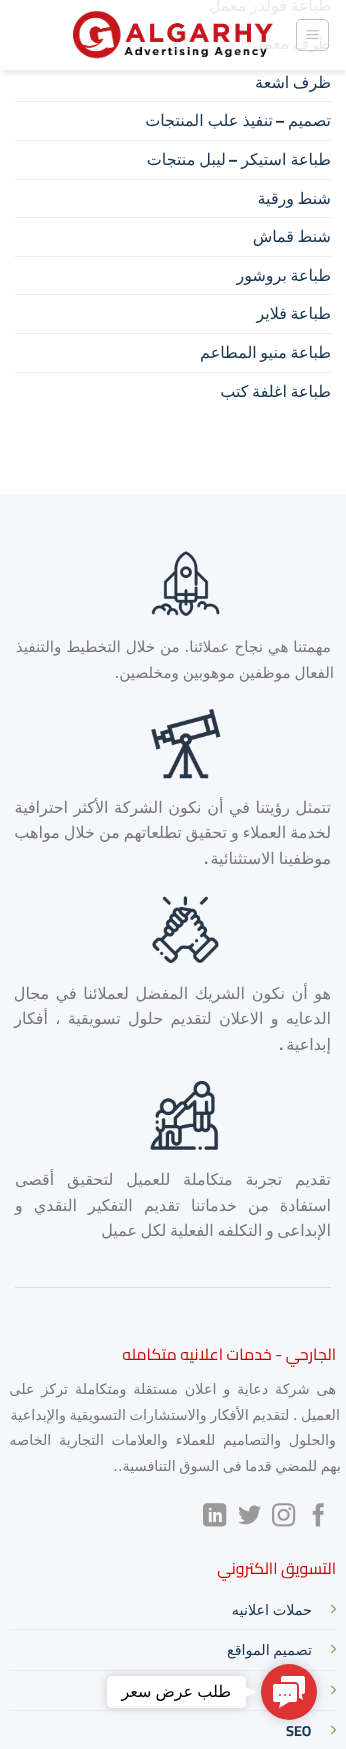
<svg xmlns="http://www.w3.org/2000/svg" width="346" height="1749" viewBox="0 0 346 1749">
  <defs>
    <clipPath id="clip1"><rect x="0" y="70" width="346" height="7"/></clipPath>
    <filter id="blur1" x="-50%" y="-200%" width="200%" height="500%"><feGaussianBlur stdDeviation="5"/></filter>
    <filter id="blur2" x="-50%" y="-200%" width="200%" height="500%"><feGaussianBlur stdDeviation="6"/></filter>
  </defs>
  <rect width="100%" height="100%" fill="#ffffff"/>
  <g clip-path="url(#clip1)">
    <rect x="1" y="1" width="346" height="70" fill="#000000" fill-opacity="0.15" filter="url(#blur1)"/>
  </g>
  <text x="331" y="49" word-spacing="-1.5" font-family="DejaVu Sans" font-size="16" direction="rtl" fill="#e8ebee">ظرف معمل</text>
  <rect x="296.5" y="19.5" width="32" height="31" rx="4.5" fill="none" stroke="#c0c0c0"/>
  <image x="306" y="30" width="13" height="10" href="img1.png"/>
  <text x="331" y="11" word-spacing="-1.5" font-family="DejaVu Sans" font-size="16" direction="rtl" fill="#e8ebee">طباعة فولدر معمل</text>
  <image x="73" y="10" width="200" height="49" href="img2.png"/>
  <text x="331" y="88" word-spacing="-1.5" font-family="DejaVu Sans" font-size="16" direction="rtl" fill="#173653">ظرف اشعة</text>
  <rect x="15" y="101" width="316" height="1" fill="#ececec"/>
  <text x="331" y="126" font-family="DejaVu Sans" font-size="16" direction="rtl" fill="#173653">تصميم</text>
  <text x="285" y="126" font-family="Cairo" font-size="16" font-weight="bold" direction="rtl" fill="#173653">–</text>
  <text x="273" y="126" word-spacing="-1" font-family="DejaVu Sans" font-size="16" direction="rtl" fill="#173653">تنفيذ علب المنتجات</text>
  <rect x="15" y="140" width="316" height="1" fill="#ececec"/>
  <text x="331" y="165" word-spacing="-1" font-family="DejaVu Sans" font-size="16" direction="rtl" fill="#173653">طباعة استيكر</text>
  <text x="238" y="165" font-family="Cairo" font-size="16" font-weight="bold" direction="rtl" fill="#173653">–</text>
  <text x="226" y="165" word-spacing="-1" font-family="DejaVu Sans" font-size="16" direction="rtl" fill="#173653">ليبل منتجات</text>
  <rect x="15" y="179" width="316" height="1" fill="#ececec"/>
  <text x="331" y="204" word-spacing="-1.5" font-family="DejaVu Sans" font-size="16" direction="rtl" fill="#173653">شنط ورقية</text>
  <rect x="15" y="217" width="316" height="1" fill="#ececec"/>
  <text x="331" y="242" word-spacing="-1.5" font-family="DejaVu Sans" font-size="16" direction="rtl" fill="#173653">شنط قماش</text>
  <rect x="15" y="256" width="316" height="1" fill="#ececec"/>
  <text x="331" y="281" word-spacing="-1.5" font-family="DejaVu Sans" font-size="16" direction="rtl" fill="#173653">طباعة بروشور</text>
  <rect x="15" y="294" width="316" height="1" fill="#ececec"/>
  <text x="331" y="319" word-spacing="-1.5" font-family="DejaVu Sans" font-size="16" direction="rtl" fill="#173653">طباعة فلاير</text>
  <rect x="15" y="333" width="316" height="1" fill="#ececec"/>
  <text x="331" y="358" word-spacing="-1.5" font-family="DejaVu Sans" font-size="16" direction="rtl" fill="#173653">طباعة منيو المطاعم</text>
  <rect x="15" y="372" width="316" height="1" fill="#ececec"/>
  <text x="331" y="397" word-spacing="-1.5" font-family="DejaVu Sans" font-size="16" direction="rtl" fill="#173653">طباعة اغلفة كتب</text>
  <rect x="0" y="494" width="346" height="1255" fill="#f5f7fb"/>
  <image x="151" y="551" width="69" height="65" href="img3.png"/>
  <text x="331" y="652" font-family="DejaVu Sans" font-size="15.2" direction="rtl" fill="#777777">مهمتنا هي نجاح عملائنا. من خلال التخطيط والتنفيذ</text>
  <text x="334" y="678" word-spacing="-1" font-family="DejaVu Sans" font-size="15.2" direction="rtl" fill="#777777">الفعال موظفين موهوبين ومخلصين.</text>
  <image x="151" y="708" width="70" height="71" href="img4.png"/>
  <text x="331" y="813" word-spacing="0.5" font-family="DejaVu Sans" font-size="16" direction="rtl" fill="#777777">تتمثل رؤيتنا في أن نكون الشركة الأكثر احترافية</text>
  <text x="331" y="838" word-spacing="-1" font-family="DejaVu Sans" font-size="16" direction="rtl" fill="#777777">لخدمة العملاء و تحقيق تطلعاتهم من خلال مواهب</text>
  <text x="331" y="864" word-spacing="-1" font-family="DejaVu Sans" font-size="16" direction="rtl" fill="#777777">موظفينا الاستثنائية</text>
  <text x="208" y="864" font-family="Cairo" font-size="16" font-weight="bold" direction="rtl" fill="#777777">.</text>
  <image x="152" y="896" width="67" height="67" href="img5.png"/>
  <text x="331" y="999" word-spacing="1.5" font-family="DejaVu Sans" font-size="16" direction="rtl" fill="#777777">هو أن نكون الشريك المفضل لعملائنا في مجال</text>
  <text x="331" y="1024" word-spacing="2.25" font-family="DejaVu Sans" font-size="16" direction="rtl" fill="#777777">الدعايه و الاعلان لتقديم حلول تسويقية ، أفكار</text>
  <text x="331" y="1050" font-family="DejaVu Sans" font-size="16" direction="rtl" fill="#777777">إبداعية</text>
  <text x="283" y="1050" font-family="Cairo" font-size="16" font-weight="bold" direction="rtl" fill="#777777">.</text>
  <image x="150" y="1081" width="69" height="69" href="img6.png"/>
  <text x="331" y="1185" word-spacing="7.75" font-family="DejaVu Sans" font-size="16" direction="rtl" fill="#777777">تقديم تجربة متكاملة للعميل لتحقيق أقصى</text>
  <text x="331" y="1211" word-spacing="6" font-family="DejaVu Sans" font-size="16" direction="rtl" fill="#777777">استفادة من خدماتنا تقديم التفكير النقدي و</text>
  <text x="331" y="1236" word-spacing="-1.5" font-family="DejaVu Sans" font-size="16" direction="rtl" fill="#777777">الإبداعى و التكلفه الفعلية لكل عميل</text>
  <rect x="15" y="1287" width="316" height="1" fill="#dddee2"/>
  <text x="336" y="1360" font-family="Cairo" font-size="16" direction="rtl" fill="#c90000">الجارحي - خدمات اعلانيه متكامله</text>
  <text x="336" y="1394" word-spacing="2.25" font-family="DejaVu Sans" font-size="14.4" direction="rtl" fill="#777777">هى شركة دعاية و اعلان مستقلة ومتكاملة تركز على</text>
  <text x="340" y="1420" word-spacing="-1" font-family="DejaVu Sans" font-size="14.4" direction="rtl" fill="#777777">العميل . لتقديم الأفكار والاستشارات التسويقية والإبداعية</text>
  <text x="336" y="1445" word-spacing="3" font-family="DejaVu Sans" font-size="14.4" direction="rtl" fill="#777777">والحلول والتصاميم للعملاء والعلامات التجارية الخاصه</text>
  <text x="341" y="1471" word-spacing="-1" font-family="DejaVu Sans" font-size="14.4" direction="rtl" fill="#777777">بهم للمضي قدما فى السوق التنافسية..</text>
  <image x="312" y="1503" width="12" height="24" href="img7.png"/>
  <image x="272" y="1503" width="24" height="24" href="img8.png"/>
  <image x="238" y="1505" width="23" height="20" href="img9.png"/>
  <image x="203" y="1503" width="24" height="24" href="img10.png"/>
  <text x="336" y="1574" font-family="Cairo" font-size="16" direction="rtl" fill="#c90000">التسويق االكتروني</text>
  <rect x="10" y="1629" width="326" height="1" fill="#ececec"/>
  <image x="331" y="1604" width="6" height="10" href="img11.png"/>
  <text x="312" y="1615" word-spacing="-1" font-family="DejaVu Sans" font-size="14.4" direction="rtl" fill="#173653">حملات اعلانيه</text>
  <rect x="10" y="1670" width="326" height="1" fill="#ececec"/>
  <image x="331" y="1644" width="6" height="10" href="img11.png"/>
  <text x="312" y="1655" word-spacing="-1" font-family="DejaVu Sans" font-size="14.4" direction="rtl" fill="#173653">تصميم المواقع</text>
  <rect x="10" y="1710" width="326" height="1" fill="#ececec"/>
  <image x="331" y="1685" width="6" height="10" href="img11.png"/>
  <image x="331" y="1725" width="6" height="10" href="img11.png"/>
  <text x="286" y="1736" font-family="Cairo" font-size="14.4" font-weight="bold" fill="#173653">SEO</text>
  <rect x="261" y="1664" width="56" height="56" rx="28" fill="#000000" fill-opacity="0.2" filter="url(#blur2)"/>
  <circle cx="289" cy="1692" r="28" fill="#dd3333"/>
  <image x="273" y="1676" width="32" height="32" href="img12.png"/>
  <rect x="107" y="1676" width="139" height="32" rx="5" fill="#000000" fill-opacity="0.2" filter="url(#blur1)"/>
  <rect x="107" y="1676" width="139" height="32" rx="5" fill="#ffffff"/>
  <path d="M246 1697V1687L257 1692Z" fill="#ffffff"/>
  <text x="231" y="1697" word-spacing="-1" font-family="DejaVu Sans" font-size="16" direction="rtl" fill="#000000">طلب عرض سعر</text>
</svg>
